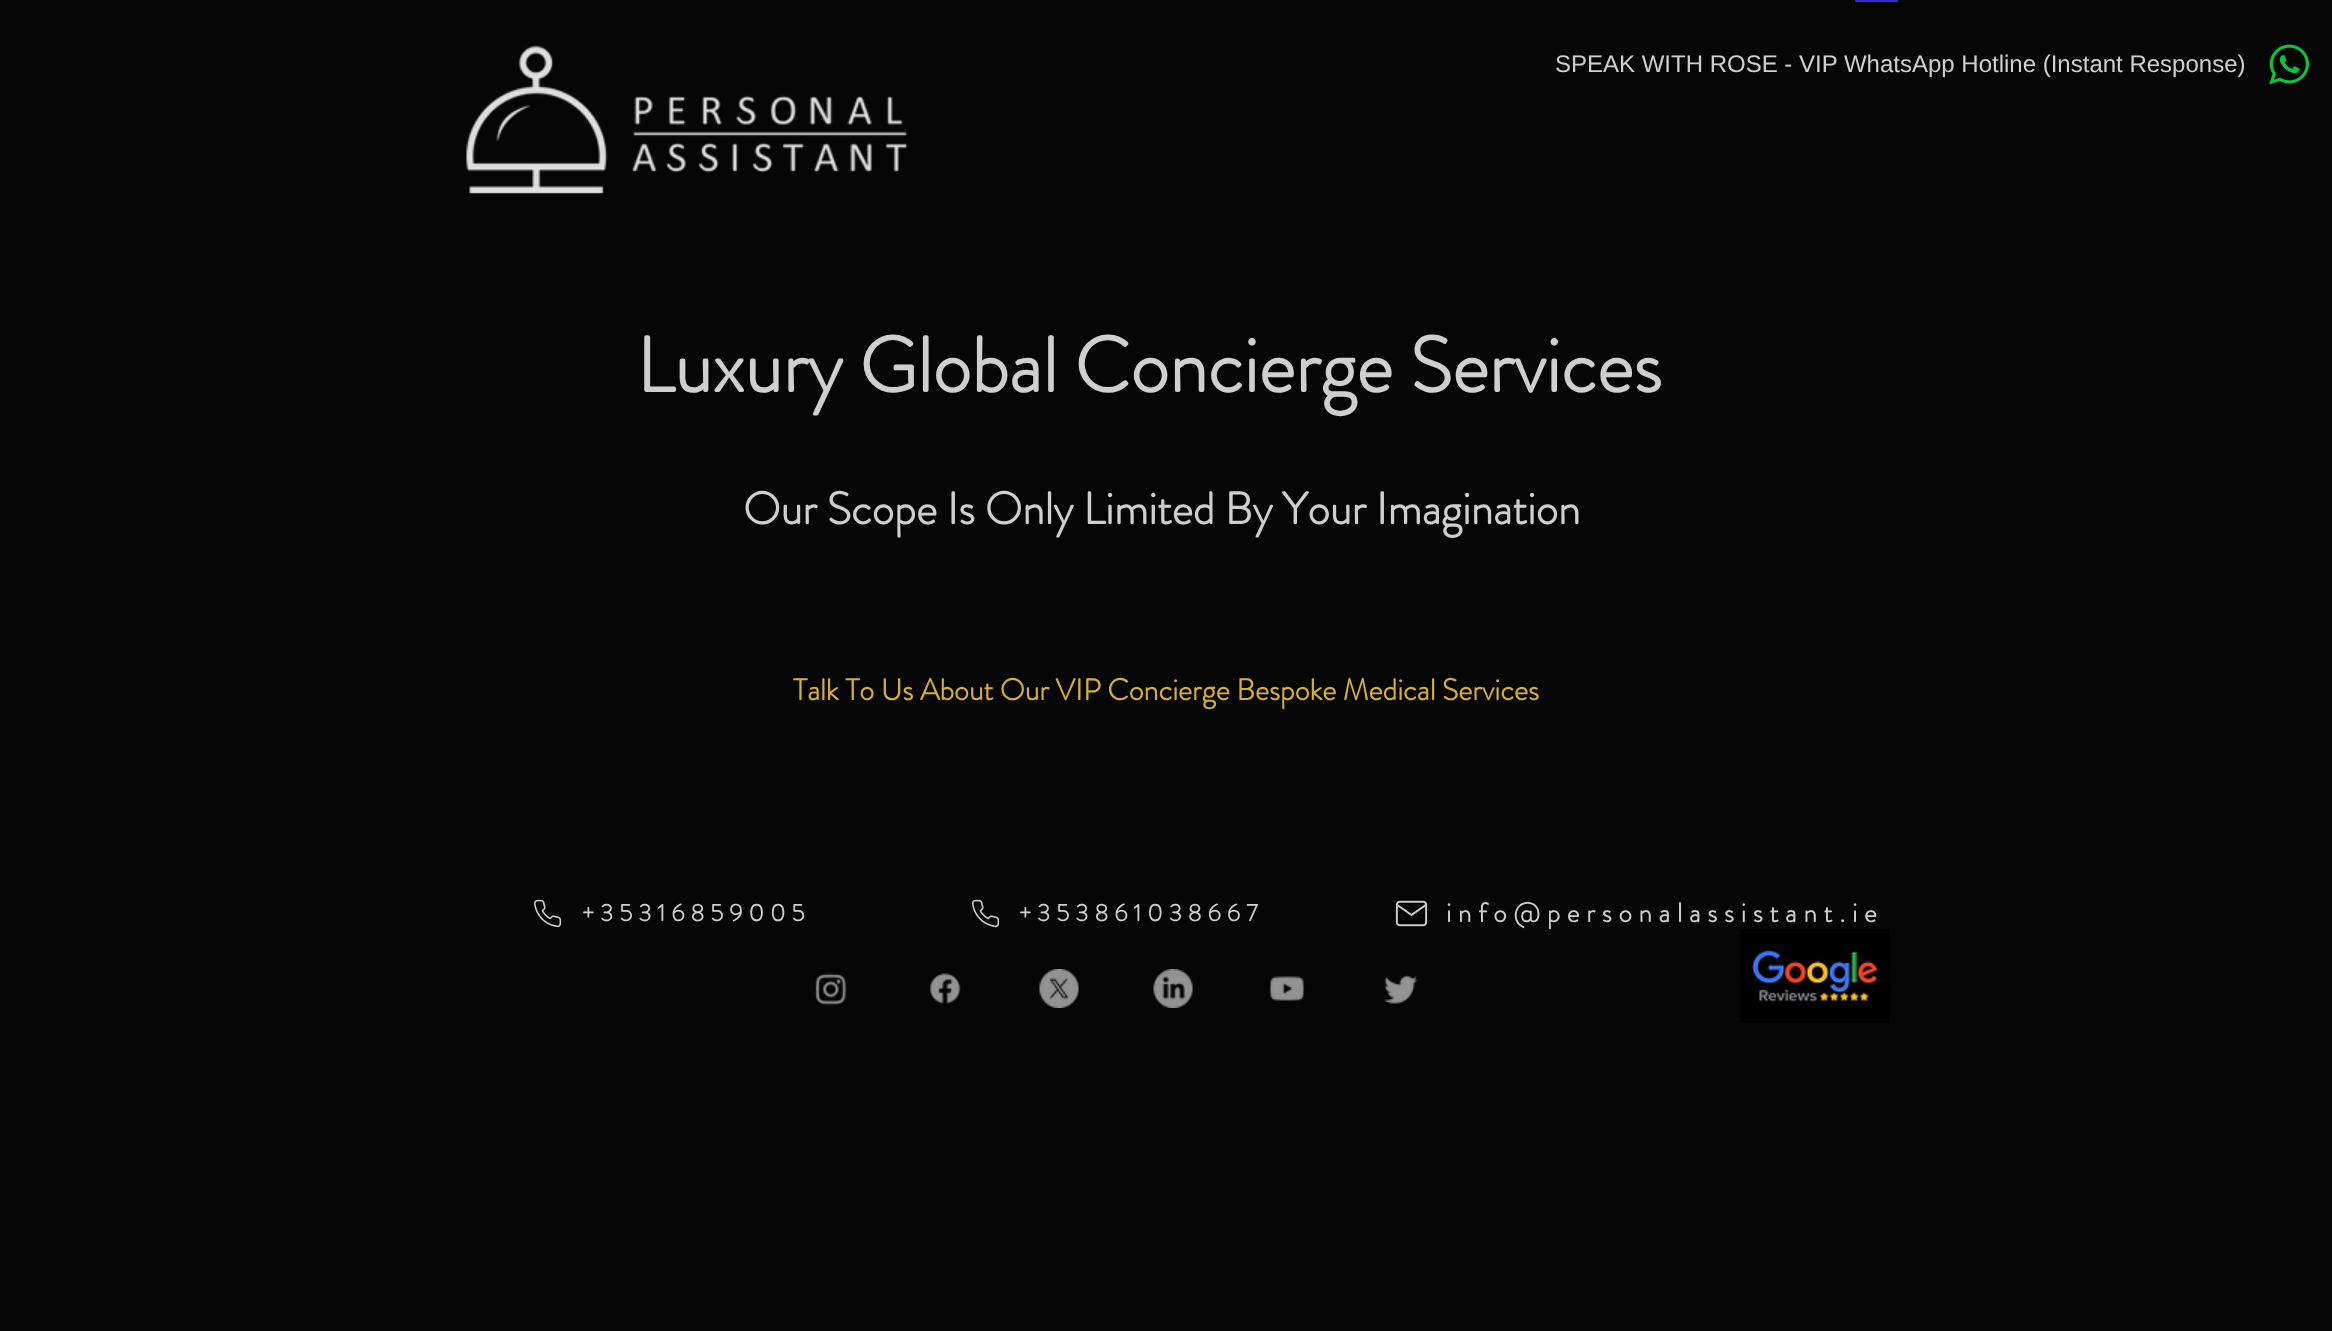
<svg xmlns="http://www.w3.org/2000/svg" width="2332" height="1331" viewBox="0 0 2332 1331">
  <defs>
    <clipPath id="clip1"><rect x="1446" y="899" width="437" height="30"/></clipPath>
  </defs>
  <rect width="100%" height="100%" fill="#050505"/>
  <image x="1855" y="0" width="43" height="2" href="img1.png"/>
  <image x="465" y="45" width="443" height="149" href="img2.png"/>
  <text x="1555" y="72" font-family="Liberation Sans" font-size="24" fill="#cfcfcf">SPEAK WITH ROSE - VIP WhatsApp Hotline (Instant Response)</text>
  <image x="2269" y="44" width="40" height="41" href="img3.png"/>
  <text x="636" y="392" font-family="'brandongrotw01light'" font-size="78" font-weight="bold" fill="#cfcfcf">Luxury Global Concierge Services</text>
  <text x="743" y="524" font-family="'brandongrotw01light'" font-size="45" font-weight="bold" fill="#cfcfcf">Our Scope Is Only Limited By Your Imagination</text>
  <text x="793" y="700" font-family="'brandongrotw01light'" font-size="30" font-weight="bold" fill="#d4af37">Talk To Us About Our VIP Concierge Bespoke Medical Services</text>
  <image x="534" y="899" width="28" height="29" href="img4.png"/>
  <text x="582" y="921" font-family="'brandongrotw01light'" font-size="24" font-weight="bold" letter-spacing="6" fill="#cfcfcf">+35316859005</text>
  <image x="972" y="899" width="28" height="29" href="img4.png"/>
  <text x="1019" y="921" font-family="'brandongrotw01light'" font-size="24" font-weight="bold" letter-spacing="6" fill="#cfcfcf">+353861038667</text>
  <image x="1395" y="900" width="33" height="27" href="img5.png"/>
  <g clip-path="url(#clip1)">
    <text x="1446" y="922" font-family="'brandongrotw01light'" font-size="27" font-weight="bold" letter-spacing="6.75" fill="#cfcfcf">info@personalassistant.ie</text>
  </g>
  <image x="815" y="973" width="32" height="33" href="img6.png"/>
  <image x="929" y="973" width="32" height="31" href="img7.png"/>
  <image x="1039" y="969" width="40" height="39" href="img8.png"/>
  <image x="1153" y="969" width="40" height="39" href="img9.png"/>
  <image x="1269" y="976" width="36" height="25" href="img10.png"/>
  <image x="1384" y="975" width="34" height="29" href="img11.png"/>
  <image x="1740" y="929" width="150" height="94" href="img12.png"/>
</svg>
